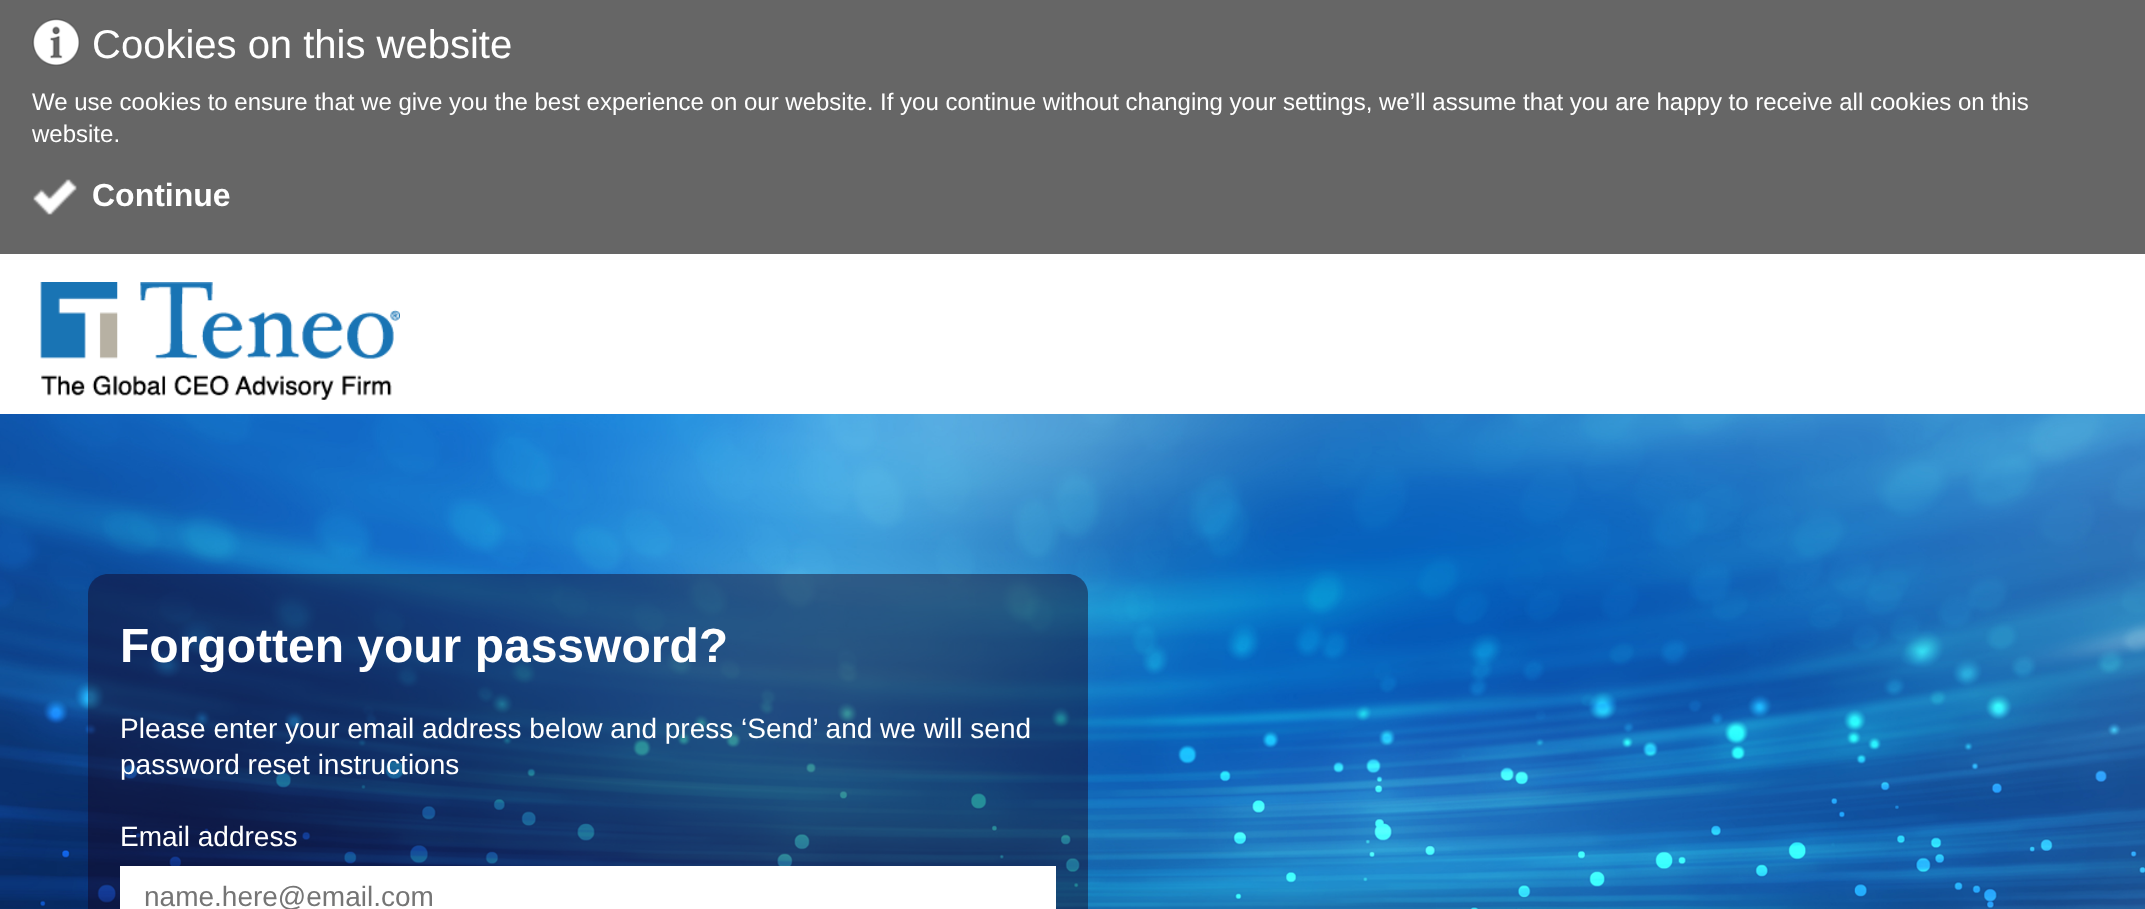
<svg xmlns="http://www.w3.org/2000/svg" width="2145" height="909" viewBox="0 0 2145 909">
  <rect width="100%" height="100%" fill="#ffffff"/>
  <rect x="0" y="0" width="2145" height="254" fill="#666666"/>
  <image x="32" y="18" width="48" height="48" href="img1.png"/>
  <text x="92" y="58" font-family="Liberation Sans" font-size="40" fill="#ffffff">Cookies on this website</text>
  <text x="32" y="110" font-family="Liberation Sans" font-size="24" fill="#ffffff">We use cookies to ensure that we give you the best experience on our website. If you continue without changing your settings, we’ll assume that you are happy to receive all cookies on this</text>
  <text x="32" y="142" font-family="Liberation Sans" font-size="24" fill="#ffffff">website.</text>
  <image x="33" y="179" width="44" height="36" href="img2.png"/>
  <text x="92" y="206" font-family="Liberation Sans" font-size="32" font-weight="bold" fill="#ffffff">Continue</text>
  <image x="0" y="414" width="2145" height="495" href="img3.png"/>
  <image x="40" y="282" width="360" height="118" href="img4.png"/>
  <path d="M108 574H1068C1079 574 1088 583 1088 594V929H88V594C88 583 97 574 108 574Z" fill="#15001a" fill-opacity="0.44"/>
  <text x="120" y="662" font-family="Liberation Sans" font-size="48" font-weight="bold" fill="#ffffff">Forgotten your password?</text>
  <text x="120" y="738" font-family="Liberation Sans" font-size="28" fill="#ffffff">Please enter your email address below and press ‘Send’ and we will send</text>
  <text x="120" y="774" font-family="Liberation Sans" font-size="28" fill="#ffffff">password reset instructions</text>
  <text x="120" y="846" font-family="Liberation Sans" font-size="28" fill="#ffffff">Email address</text>
  <rect x="120" y="866" width="936" height="43" fill="#ffffff"/>
  <text x="144" y="906" font-family="Liberation Sans" font-size="28" fill="#757575">name.here@email.com</text>
</svg>
